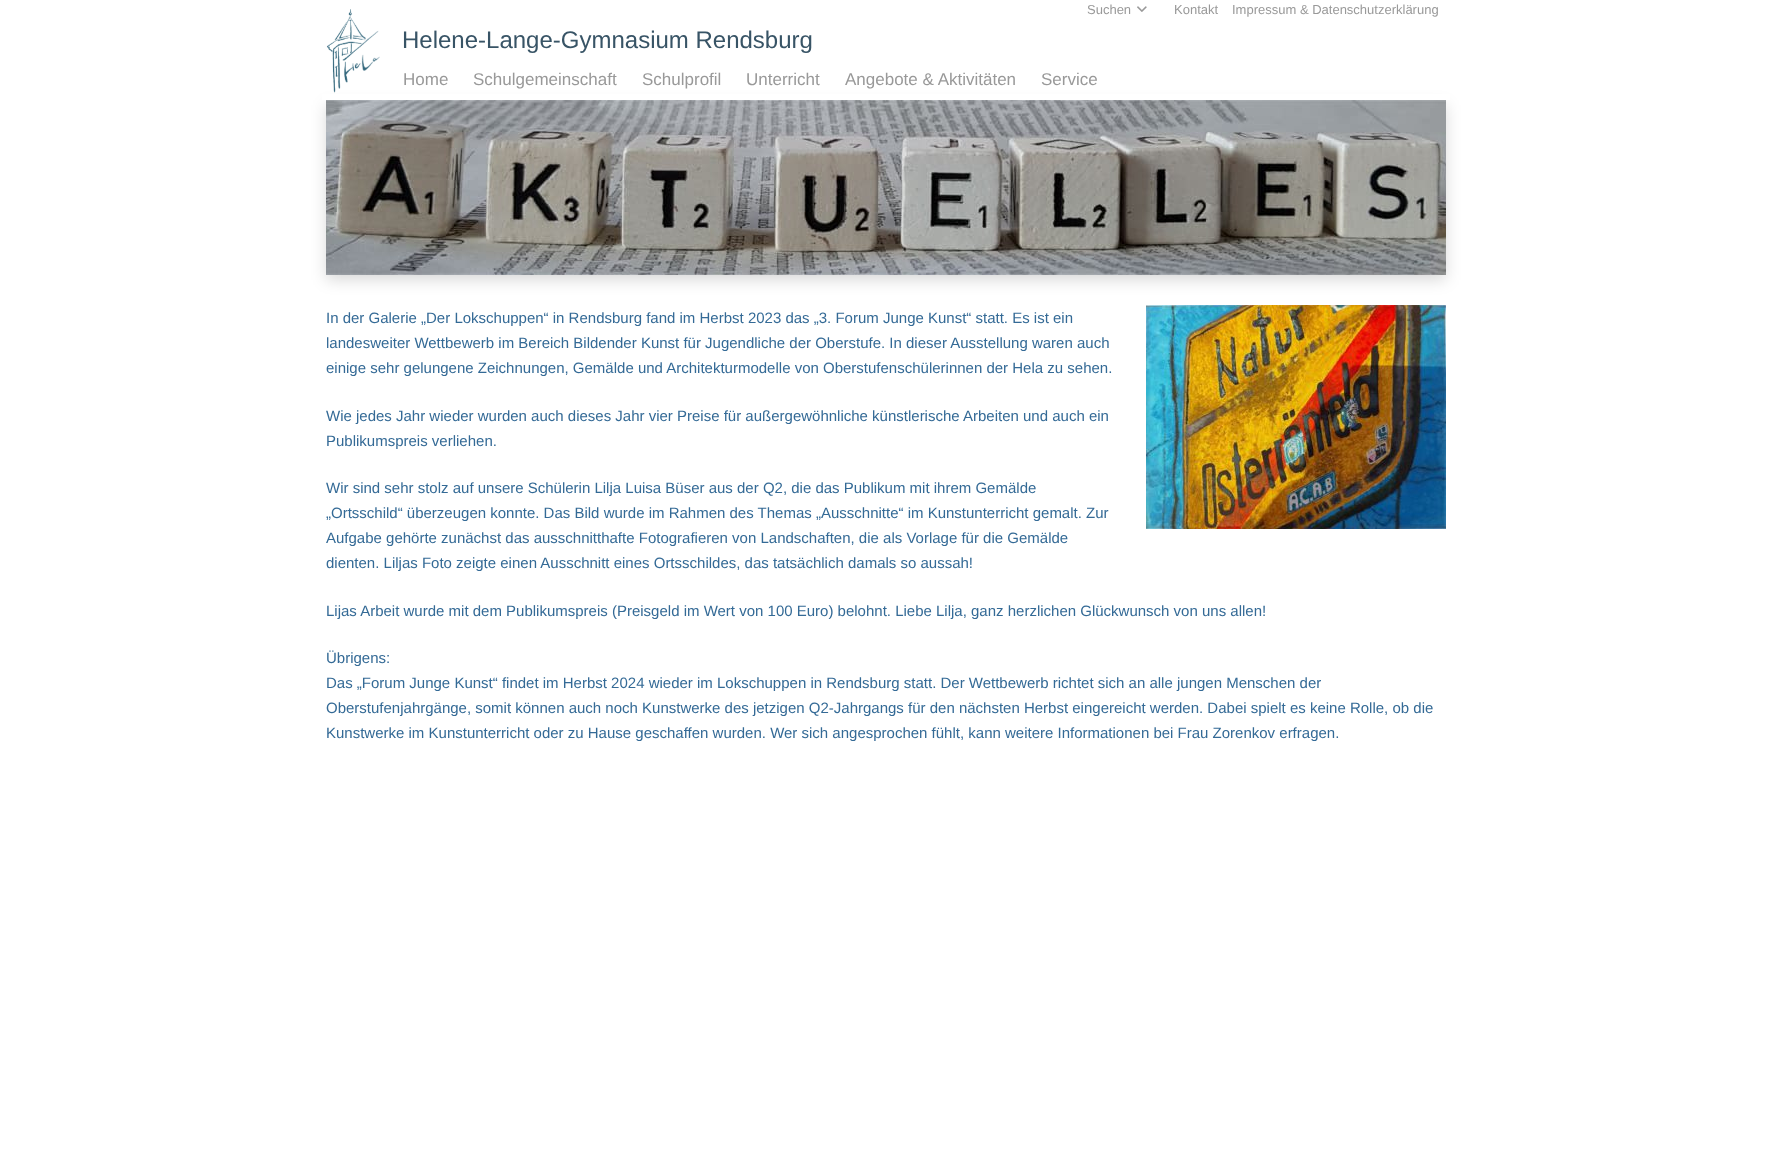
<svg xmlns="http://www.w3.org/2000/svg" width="1772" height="1169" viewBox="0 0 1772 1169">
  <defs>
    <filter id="blur1" x="-50%" y="-200%" width="200%" height="500%"><feGaussianBlur stdDeviation="7.5"/></filter>
  </defs>
  <rect width="100%" height="100%" fill="#ffffff"/>
  <text x="1087" y="14" font-family="Liberation Sans" font-size="13" fill="#999999">Suchen</text>
  <image x="1137" y="6" width="10" height="6" href="img1.png"/>
  <text x="1174" y="14" font-family="Liberation Sans" font-size="13" fill="#999999">Kontakt</text>
  <text x="1232" y="14" font-family="Liberation Sans" font-size="13" fill="#999999">Impressum &amp; Datenschutzerklärung</text>
  <rect x="326" y="105" width="1120" height="175" fill="#000000" fill-opacity="0.15" filter="url(#blur1)"/>
  <image x="326" y="9" width="54" height="84" href="img2.png"/>
  <text x="402" y="48" font-family="Liberation Sans" font-size="24" fill="#385466">Helene-Lange-Gymnasium Rendsburg</text>
  <rect x="322" y="94" width="1128" height="6" fill="#ffffff"/>
  <text x="403" y="85" font-family="Liberation Sans" font-size="17" fill="#999999">Home</text>
  <text x="473" y="85" font-family="Liberation Sans" font-size="17" fill="#999999">Schulgemeinschaft</text>
  <text x="642" y="85" font-family="Liberation Sans" font-size="17" fill="#999999">Schulprofil</text>
  <text x="746" y="85" font-family="Liberation Sans" font-size="17" fill="#999999">Unterricht</text>
  <text x="845" y="85" font-family="Liberation Sans" font-size="17" fill="#999999">Angebote &amp; Aktivitäten</text>
  <text x="1041" y="85" font-family="Liberation Sans" font-size="17" fill="#999999">Service</text>
  <image x="326" y="100" width="1120" height="175" href="img3.png"/>
  <text x="326" y="323" font-family="Liberation Sans" font-size="15" fill="#346a96">In der Galerie „Der Lokschuppen“ in Rendsburg fand im Herbst 2023 das „3. Forum Junge Kunst“ statt. Es ist ein</text>
  <image x="1146" y="305" width="300" height="224" href="img4.png"/>
  <text x="326" y="348" font-family="Liberation Sans" font-size="15" fill="#346a96">landesweiter Wettbewerb im Bereich Bildender Kunst für Jugendliche der Oberstufe. In dieser Ausstellung waren auch</text>
  <text x="326" y="373" font-family="Liberation Sans" font-size="15" fill="#346a96">einige sehr gelungene Zeichnungen, Gemälde und Architekturmodelle von Oberstufenschülerinnen der Hela zu sehen.</text>
  <text x="326" y="421" font-family="Liberation Sans" font-size="15" fill="#346a96">Wie jedes Jahr wieder wurden auch dieses Jahr vier Preise für außergewöhnliche künstlerische Arbeiten und auch ein</text>
  <text x="326" y="446" font-family="Liberation Sans" font-size="15" fill="#346a96">Publikumspreis verliehen.</text>
  <text x="326" y="493" font-family="Liberation Sans" font-size="15" fill="#346a96">Wir sind sehr stolz auf unsere Schülerin Lilja Luisa Büser aus der Q2, die das Publikum mit ihrem Gemälde</text>
  <text x="326" y="518" font-family="Liberation Sans" font-size="15" fill="#346a96">„Ortsschild“ überzeugen konnte. Das Bild wurde im Rahmen des Themas „Ausschnitte“ im Kunstunterricht gemalt. Zur</text>
  <text x="326" y="543" font-family="Liberation Sans" font-size="15" fill="#346a96">Aufgabe gehörte zunächst das ausschnitthafte Fotografieren von Landschaften, die als Vorlage für die Gemälde</text>
  <text x="326" y="568" font-family="Liberation Sans" font-size="15" fill="#346a96">dienten. Liljas Foto zeigte einen Ausschnitt eines Ortsschildes, das tatsächlich damals so aussah!</text>
  <text x="326" y="616" font-family="Liberation Sans" font-size="15" fill="#346a96">Lijas Arbeit wurde mit dem Publikumspreis (Preisgeld im Wert von 100 Euro) belohnt. Liebe Lilja, ganz herzlichen Glückwunsch von uns allen!</text>
  <text x="326" y="663" font-family="Liberation Sans" font-size="15" fill="#346a96">Übrigens:</text>
  <text x="326" y="688" font-family="Liberation Sans" font-size="15" fill="#346a96">Das „Forum Junge Kunst“ findet im Herbst 2024 wieder im Lokschuppen in Rendsburg statt. Der Wettbewerb richtet sich an alle jungen Menschen der</text>
  <text x="326" y="713" font-family="Liberation Sans" font-size="15" fill="#346a96">Oberstufenjahrgänge, somit können auch noch Kunstwerke des jetzigen Q2-Jahrgangs für den nächsten Herbst eingereicht werden. Dabei spielt es keine Rolle, ob die</text>
  <text x="326" y="738" font-family="Liberation Sans" font-size="15" fill="#346a96">Kunstwerke im Kunstunterricht oder zu Hause geschaffen wurden. Wer sich angesprochen fühlt, kann weitere Informationen bei Frau Zorenkov erfragen.</text>
</svg>
